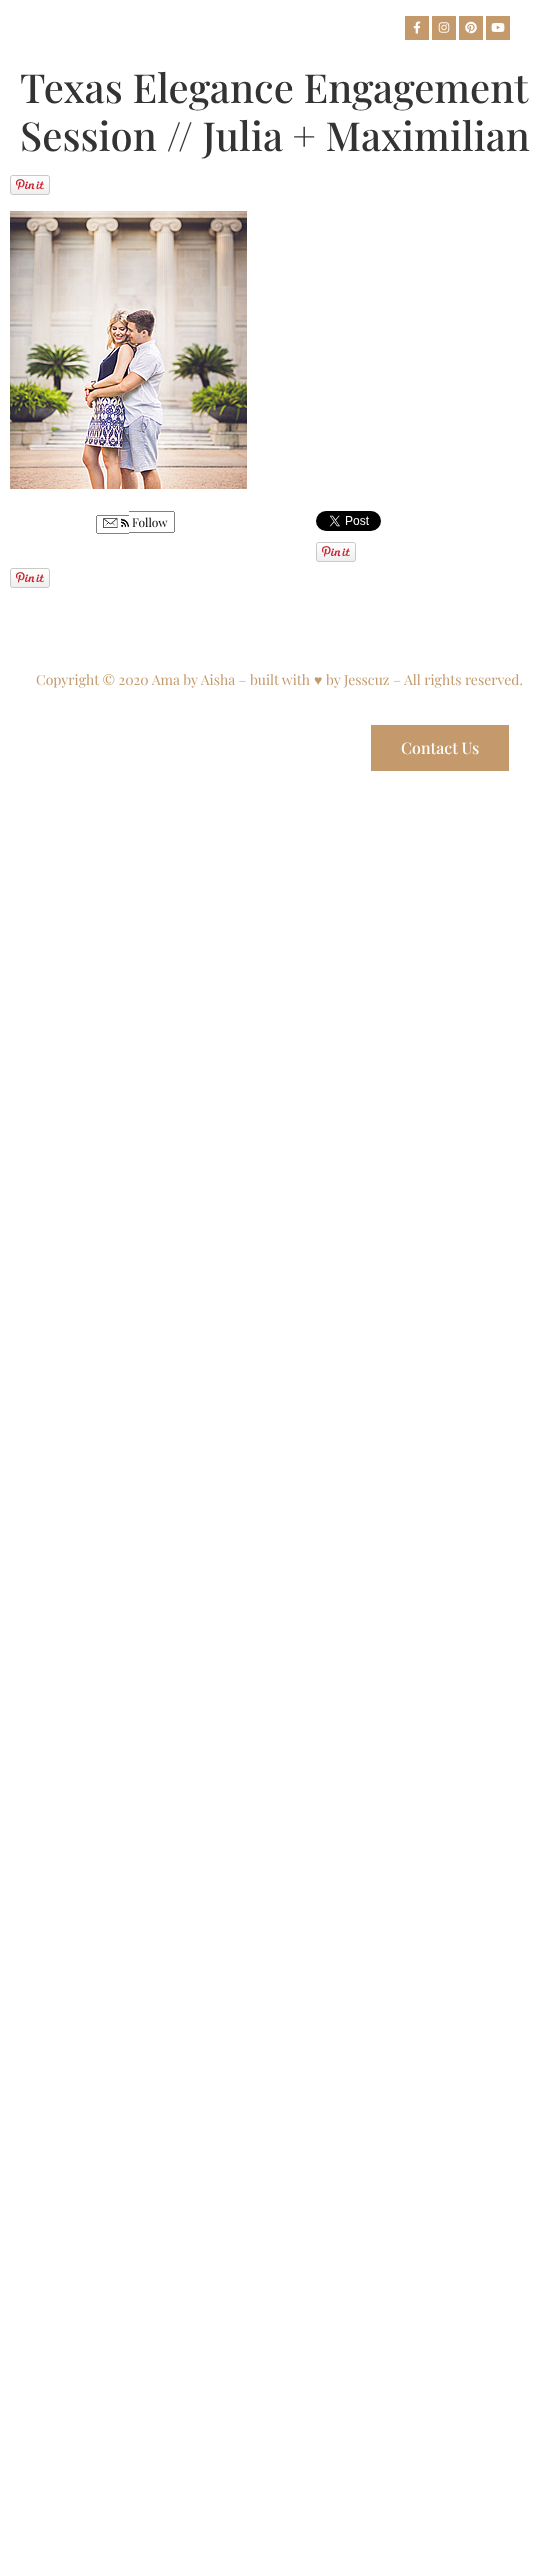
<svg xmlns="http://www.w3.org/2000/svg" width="559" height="2556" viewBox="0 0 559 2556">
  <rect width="100%" height="100%" fill="#ffffff"/>
  <rect x="405" y="16" width="24" height="24" fill="#c49a6c"/>
  <image x="413" y="21" width="8" height="13" href="img1.png"/>
  <rect x="432" y="16" width="24" height="24" fill="#c49a6c"/>
  <image x="438" y="22" width="12" height="11" href="img2.png"/>
  <rect x="459" y="16" width="24" height="24" fill="#c49a6c"/>
  <image x="465" y="21" width="12" height="13" href="img3.png"/>
  <rect x="486" y="16" width="24" height="24" fill="#c49a6c"/>
  <image x="491" y="23" width="14" height="9" href="img4.png"/>
  <text x="20" y="103" font-family="Playfair Display" font-size="40" font-weight="500" fill="#333333">Texas Elegance Engagement</text>
  <text x="20" y="151" font-family="Playfair Display" font-size="40" font-weight="500" fill="#333333">Session // Julia + Maximilian</text>
  <image x="10" y="175" width="40" height="20" href="img5.png"/>
  <image x="10" y="211" width="237" height="278" href="img6.png"/>
  <image x="103" y="518" width="26" height="10" href="img7.png"/>
  <text x="132" y="527" font-family="Playfair Display" font-size="12" fill="#000000">Follow</text>
  <rect x="97" y="515" width="32" height="1" fill="#808080"/>
  <rect x="97" y="533" width="32" height="1" fill="#808080"/>
  <rect x="96" y="516" width="1" height="17" fill="#808080"/>
  <rect x="129" y="511" width="45" height="1" fill="#808080"/>
  <rect x="174" y="512" width="1" height="20" fill="#808080"/>
  <rect x="129" y="532" width="45" height="1" fill="#808080"/>
  <image x="316" y="511" width="65" height="20" href="img8.png"/>
  <image x="316" y="542" width="40" height="20" href="img5.png"/>
  <image x="10" y="568" width="40" height="20" href="img5.png"/>
  <text x="36" y="685" font-family="Playfair Display" font-size="14" fill="#c49a6c">Copyright © 2020 Ama by Aisha – built with</text>
  <text x="314" y="685" font-family="Liberation Sans" font-size="14" fill="#c49a6c">♥</text>
  <text x="326" y="685" font-family="Playfair Display" font-size="14" fill="#c49a6c">by Jesscuz – All rights reserved.</text>
  <rect x="371" y="725" width="138" height="46" fill="#c49a6c"/>
  <text x="401" y="754" font-family="Playfair Display" font-size="16" font-weight="500" fill="#ffffff">Contact Us</text>
</svg>
